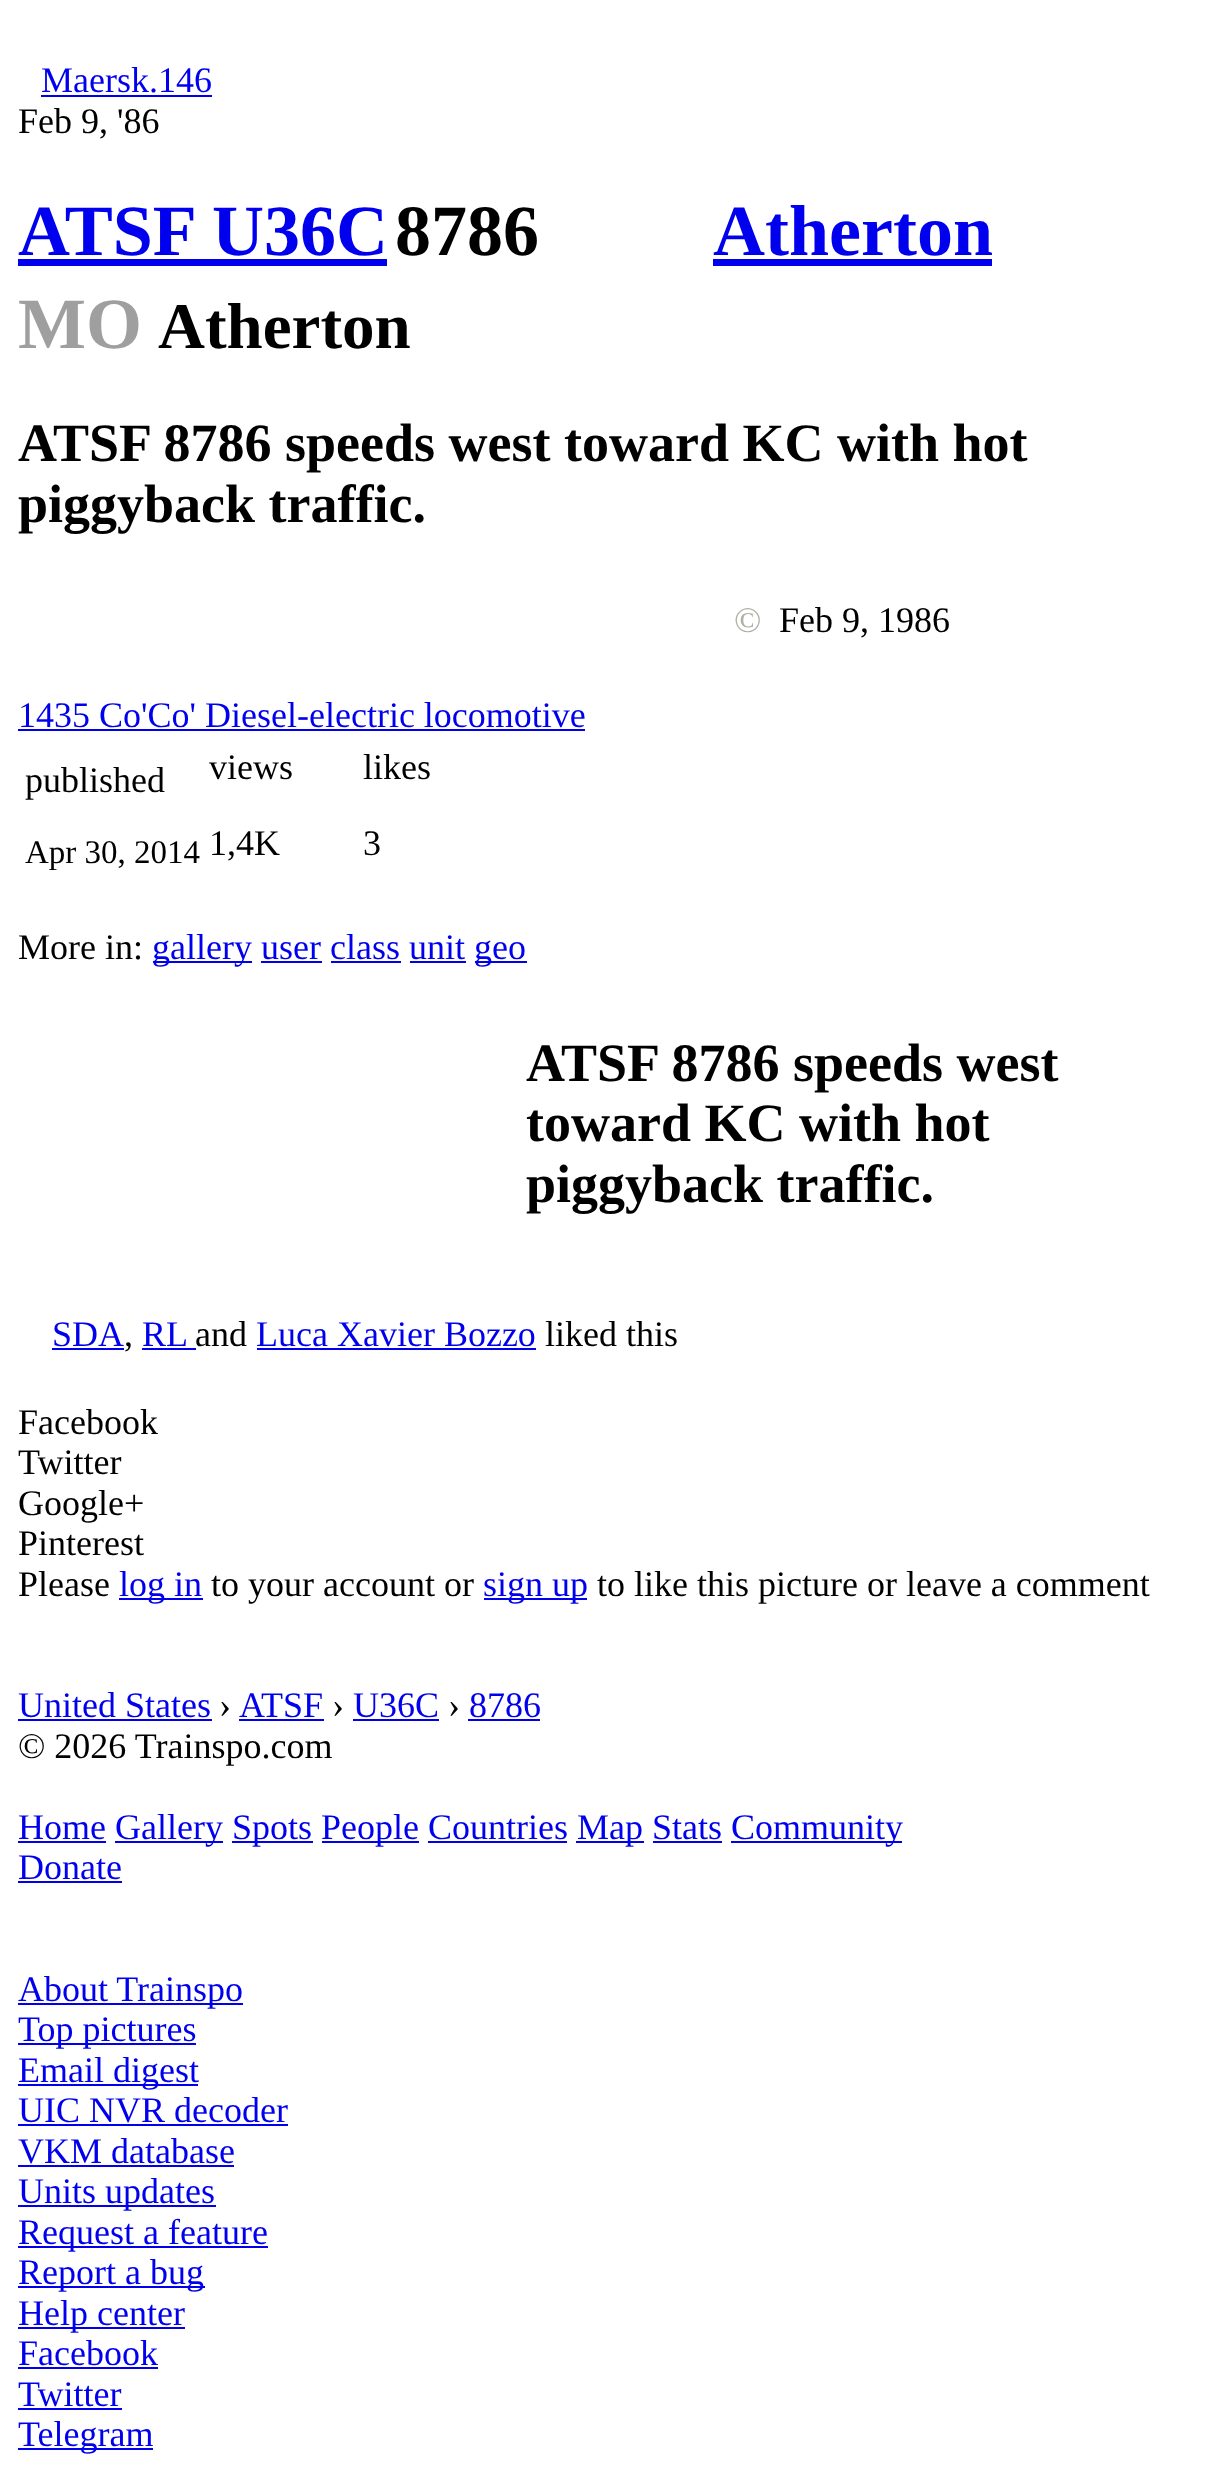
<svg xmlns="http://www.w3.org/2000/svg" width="1213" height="2491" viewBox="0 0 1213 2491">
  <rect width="100%" height="100%" fill="#ffffff"/>
  <text x="41" y="92" font-family="Liberation Serif" font-size="36" fill="#0000ee">Maersk.146</text>
  <rect x="41" y="95" width="171" height="2" fill="#0000ee"/>
  <text x="18" y="133" font-family="Liberation Serif" font-size="36" fill="#000000">Feb 9, '86</text>
  <text x="18" y="255" font-family="Liberation Serif" font-size="72" font-weight="bold" fill="#0000ee">ATSF U36C</text>
  <rect x="18" y="259" width="369" height="7" fill="#0000ee"/>
  <text x="395" y="255" font-family="Liberation Serif" font-size="72" font-weight="bold" fill="#000000">8786</text>
  <text x="713" y="255" font-family="Liberation Serif" font-size="72" font-weight="bold" fill="#0000ee">Atherton</text>
  <rect x="713" y="259" width="279" height="7" fill="#0000ee"/>
  <text x="18" y="348" font-family="Liberation Serif" font-size="72" font-weight="bold" fill="#9f9f9f">MO</text>
  <text x="158" y="348" font-family="Liberation Serif" font-size="65" font-weight="bold" fill="#000000">Atherton</text>
  <text x="18" y="461" font-family="Liberation Serif" font-size="54" font-weight="bold" fill="#000000">ATSF 8786 speeds west toward KC with hot</text>
  <text x="18" y="522" font-family="Liberation Serif" font-size="54" font-weight="bold" fill="#000000">piggyback traffic.</text>
  <text x="734" y="632" font-family="Liberation Serif" font-size="36" fill="#afafa3">©</text>
  <text x="779" y="632" font-family="Liberation Serif" font-size="36" fill="#000000">Feb 9, 1986</text>
  <text x="18" y="727" font-family="Liberation Serif" font-size="36" fill="#0000ee">1435 Co'Co' Diesel-electric locomotive</text>
  <rect x="18" y="729" width="567" height="2" fill="#0000ee"/>
  <text x="25" y="792" font-family="Liberation Serif" font-size="36" fill="#000000">published</text>
  <text x="25" y="863" font-family="Liberation Serif" font-size="33" fill="#000000">Apr 30, 2014</text>
  <text x="209" y="779" font-family="Liberation Serif" font-size="36" fill="#000000">views</text>
  <text x="209" y="855" font-family="Liberation Serif" font-size="36" fill="#000000">1,4K</text>
  <text x="363" y="779" font-family="Liberation Serif" font-size="36" fill="#000000">likes</text>
  <text x="363" y="855" font-family="Liberation Serif" font-size="36" fill="#000000">3</text>
  <text x="18" y="959" font-family="Liberation Serif" font-size="36" fill="#000000">More in:</text>
  <rect x="153" y="961" width="99" height="2" fill="#0000ee"/>
  <text x="152" y="959" font-family="Liberation Serif" font-size="36" fill="#0000ee">gallery user class unit</text>
  <rect x="475" y="961" width="52" height="2" fill="#0000ee"/>
  <text x="474" y="959" font-family="Liberation Serif" font-size="36" fill="#0000ee">geo</text>
  <rect x="261" y="961" width="61" height="2" fill="#0000ee"/>
  <rect x="331" y="961" width="70" height="2" fill="#0000ee"/>
  <rect x="410" y="961" width="56" height="2" fill="#0000ee"/>
  <text x="526" y="1081" font-family="Liberation Serif" font-size="54" font-weight="bold" fill="#000000">ATSF 8786 speeds west</text>
  <text x="526" y="1141" font-family="Liberation Serif" font-size="54" font-weight="bold" fill="#000000">toward KC with hot</text>
  <text x="526" y="1202" font-family="Liberation Serif" font-size="54" font-weight="bold" fill="#000000">piggyback traffic.</text>
  <text x="52" y="1346" font-family="Liberation Serif" font-size="36" fill="#0000ee">SDA</text>
  <rect x="52" y="1348" width="72" height="2" fill="#0000ee"/>
  <text x="124" y="1346" font-family="Liberation Serif" font-size="36" fill="#000000">,</text>
  <text x="142" y="1346" font-family="Liberation Serif" font-size="36" fill="#0000ee">RL</text>
  <rect x="142" y="1348" width="54" height="2" fill="#0000ee"/>
  <text x="195" y="1346" font-family="Liberation Serif" font-size="36" fill="#000000">and</text>
  <text x="256" y="1346" font-family="Liberation Serif" font-size="36" fill="#0000ee">Luca Xavier Bozzo</text>
  <rect x="257" y="1348" width="279" height="2" fill="#0000ee"/>
  <text x="545" y="1346" font-family="Liberation Serif" font-size="36" fill="#000000">liked this</text>
  <text x="18" y="1434" font-family="Liberation Serif" font-size="36" fill="#000000">Facebook</text>
  <text x="18" y="1474" font-family="Liberation Serif" font-size="36" fill="#000000">Twitter</text>
  <text x="18" y="1515" font-family="Liberation Serif" font-size="36" fill="#000000">Google+</text>
  <text x="18" y="1555" font-family="Liberation Serif" font-size="36" fill="#000000">Pinterest</text>
  <text x="18" y="1596" font-family="Liberation Serif" font-size="36" fill="#000000">Please</text>
  <rect x="119" y="1598" width="84" height="2" fill="#0000ee"/>
  <text x="119" y="1596" font-family="Liberation Serif" font-size="36" fill="#0000ee">log in</text>
  <text x="211" y="1596" font-family="Liberation Serif" font-size="36" fill="#000000">to your account or</text>
  <rect x="484" y="1598" width="103" height="2" fill="#0000ee"/>
  <text x="483" y="1596" font-family="Liberation Serif" font-size="36" fill="#0000ee">sign up</text>
  <text x="597" y="1596" font-family="Liberation Serif" font-size="36" fill="#000000">to like this picture or leave a comment</text>
  <text x="18" y="1717" font-family="Liberation Serif" font-size="36" fill="#0000ee">United States</text>
  <rect x="18" y="1719" width="194" height="2" fill="#0000ee"/>
  <text x="219" y="1717" font-family="Liberation Serif" font-size="36" fill="#000000">›</text>
  <text x="239" y="1717" font-family="Liberation Serif" font-size="36" fill="#0000ee">ATSF</text>
  <rect x="239" y="1719" width="85" height="2" fill="#0000ee"/>
  <text x="332" y="1717" font-family="Liberation Serif" font-size="36" fill="#000000">›</text>
  <text x="353" y="1717" font-family="Liberation Serif" font-size="36" fill="#0000ee">U36C</text>
  <rect x="353" y="1719" width="86" height="2" fill="#0000ee"/>
  <text x="448" y="1717" font-family="Liberation Serif" font-size="36" fill="#000000">›</text>
  <text x="469" y="1717" font-family="Liberation Serif" font-size="36" fill="#0000ee">8786</text>
  <rect x="468" y="1719" width="72" height="2" fill="#0000ee"/>
  <text x="18" y="1758" font-family="Liberation Serif" font-size="36" fill="#000000">© 2026 Trainspo.com</text>
  <text x="18" y="1839" font-family="Liberation Serif" font-size="36" fill="#0000ee">Home</text>
  <rect x="18" y="1841" width="88" height="2" fill="#0000ee"/>
  <rect x="115" y="1841" width="108" height="2" fill="#0000ee"/>
  <text x="115" y="1839" font-family="Liberation Serif" font-size="36" fill="#0000ee">Gallery</text>
  <rect x="232" y="1841" width="81" height="2" fill="#0000ee"/>
  <text x="232" y="1839" font-family="Liberation Serif" font-size="36" fill="#0000ee">Spots</text>
  <rect x="322" y="1841" width="97" height="2" fill="#0000ee"/>
  <text x="321" y="1839" font-family="Liberation Serif" font-size="36" fill="#0000ee">People Countries</text>
  <rect x="576" y="1841" width="68" height="2" fill="#0000ee"/>
  <text x="577" y="1839" font-family="Liberation Serif" font-size="36" fill="#0000ee">Map Stats</text>
  <rect x="731" y="1841" width="171" height="2" fill="#0000ee"/>
  <text x="731" y="1839" font-family="Liberation Serif" font-size="36" fill="#0000ee">Community</text>
  <rect x="428" y="1841" width="139" height="2" fill="#0000ee"/>
  <rect x="653" y="1841" width="69" height="2" fill="#0000ee"/>
  <text x="18" y="1879" font-family="Liberation Serif" font-size="36" fill="#0000ee">Donate</text>
  <rect x="18" y="1881" width="104" height="2" fill="#0000ee"/>
  <rect x="18" y="2003" width="225" height="2" fill="#0000ee"/>
  <text x="18" y="2001" font-family="Liberation Serif" font-size="36" fill="#0000ee">About Trainspo</text>
  <rect x="18" y="2043" width="178" height="2" fill="#0000ee"/>
  <text x="18" y="2041" font-family="Liberation Serif" font-size="36" fill="#0000ee">Top pictures</text>
  <rect x="18" y="2084" width="180" height="2" fill="#0000ee"/>
  <text x="18" y="2082" font-family="Liberation Serif" font-size="36" fill="#0000ee">Email digest</text>
  <text x="18" y="2122" font-family="Liberation Serif" font-size="36" fill="#0000ee">UIC NVR decoder</text>
  <rect x="18" y="2124" width="270" height="2" fill="#0000ee"/>
  <text x="18" y="2163" font-family="Liberation Serif" font-size="36" fill="#0000ee">VKM database</text>
  <rect x="18" y="2165" width="216" height="2" fill="#0000ee"/>
  <rect x="18" y="2205" width="198" height="2" fill="#0000ee"/>
  <text x="18" y="2203" font-family="Liberation Serif" font-size="36" fill="#0000ee">Units updates</text>
  <rect x="18" y="2246" width="250" height="2" fill="#0000ee"/>
  <text x="18" y="2244" font-family="Liberation Serif" font-size="36" fill="#0000ee">Request a feature</text>
  <rect x="18" y="2286" width="187" height="2" fill="#0000ee"/>
  <text x="18" y="2284" font-family="Liberation Serif" font-size="36" fill="#0000ee">Report a bug</text>
  <rect x="18" y="2327" width="167" height="2" fill="#0000ee"/>
  <text x="18" y="2325" font-family="Liberation Serif" font-size="36" fill="#0000ee">Help center</text>
  <text x="18" y="2365" font-family="Liberation Serif" font-size="36" fill="#0000ee">Facebook</text>
  <rect x="18" y="2367" width="140" height="2" fill="#0000ee"/>
  <text x="18" y="2406" font-family="Liberation Serif" font-size="36" fill="#0000ee">Twitter</text>
  <rect x="18" y="2408" width="104" height="2" fill="#0000ee"/>
  <rect x="18" y="2448" width="135" height="2" fill="#0000ee"/>
  <text x="18" y="2446" font-family="Liberation Serif" font-size="36" fill="#0000ee">Telegram</text>
</svg>
